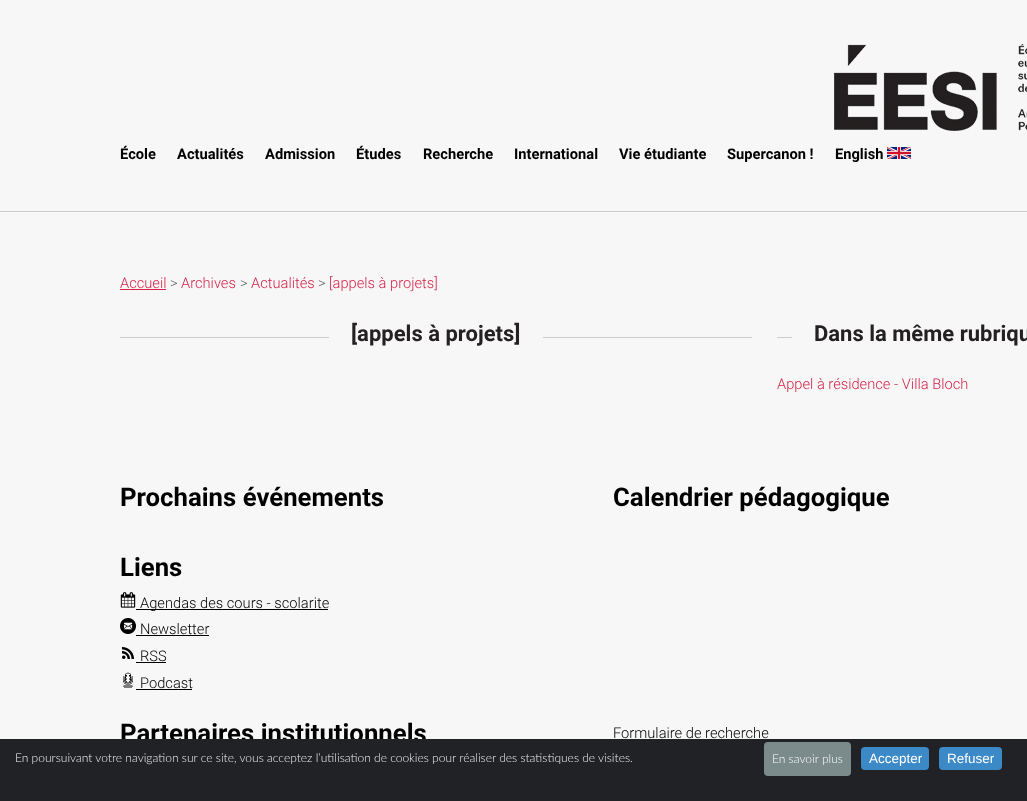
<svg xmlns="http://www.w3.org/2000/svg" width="1027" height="801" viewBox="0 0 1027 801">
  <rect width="100%" height="100%" fill="#f7f7f7"/>
  <rect x="0" y="211" width="1027" height="1" fill="#cccccc"/>
  <image x="834" y="44" width="193" height="87" href="img1.png"/>
  <text x="120" y="159" font-family="Roboto" font-size="14.7" font-weight="bold" fill="#000000">École</text>
  <text x="177" y="159" font-family="Roboto" font-size="14.7" font-weight="bold" fill="#000000">Actualités</text>
  <text x="265" y="159" font-family="Roboto" font-size="14.7" font-weight="bold" fill="#000000">Admission</text>
  <text x="356" y="159" font-family="Roboto" font-size="14.7" font-weight="bold" fill="#000000">Études</text>
  <text x="423" y="159" font-family="Roboto" font-size="14.7" font-weight="bold" fill="#000000">Recherche</text>
  <text x="514" y="159" font-family="Roboto" font-size="14.7" font-weight="bold" fill="#000000">International</text>
  <text x="619" y="159" font-family="Roboto" font-size="14.7" font-weight="bold" fill="#000000">Vie étudiante</text>
  <text x="727" y="159" font-family="Roboto" font-size="14.7" font-weight="bold" fill="#000000">Supercanon !</text>
  <text x="835" y="159" font-family="Roboto" font-size="14.7" font-weight="bold" fill="#000000">English</text>
  <image x="887" y="147" width="24" height="12" href="img2.png"/>
  <text x="120" y="288" font-family="Roboto" font-size="14.7" font-weight="300" fill="#d52349">Accueil</text>
  <rect x="120" y="289" width="46" height="1" fill="#d52349"/>
  <text x="170" y="288" font-family="Roboto" font-size="14.7" font-weight="300" fill="#5d5d5d">&gt;</text>
  <text x="181" y="288" font-family="Roboto" font-size="14.7" font-weight="300" fill="#d52349">Archives</text>
  <text x="240" y="288" font-family="Roboto" font-size="14.7" font-weight="300" fill="#5d5d5d">&gt;</text>
  <text x="251" y="288" font-family="Roboto" font-size="14.7" font-weight="300" fill="#d52349">Actualités</text>
  <text x="318" y="288" font-family="Roboto" font-size="14.7" font-weight="300" fill="#5d5d5d">&gt;</text>
  <text x="329" y="288" font-family="Roboto" font-size="14.7" font-weight="300" fill="#d52349">[appels à projets]</text>
  <rect x="120" y="337" width="632" height="1" fill="#cccccc"/>
  <rect x="329" y="337" width="214" height="1" fill="#f7f7f7"/>
  <text x="351" y="341" font-family="Roboto" font-size="22" font-weight="bold" fill="#252122">[appels à projets]</text>
  <rect x="777" y="337" width="15" height="1" fill="#cccccc"/>
  <text x="814" y="341" font-family="Roboto" font-size="22" font-weight="bold" fill="#252122">Dans la même rubriqu</text>
  <text x="777" y="389" font-family="Roboto" font-size="14.7" font-weight="300" fill="#d52349">Appel à résidence - Villa Bloch</text>
  <text x="120" y="506" font-family="Roboto" font-size="25.75" font-weight="bold" fill="#000000">Prochains événements</text>
  <text x="120" y="576" font-family="Roboto" font-size="25.75" font-weight="bold" fill="#000000">Liens</text>
  <image x="120" y="592" width="16" height="16" href="img3.png"/>
  <rect x="136" y="609" width="192" height="1" fill="#000000"/>
  <text x="140" y="608" font-family="Roboto" font-size="14.7" font-weight="300" fill="#000000">Agendas des cours - scolarite</text>
  <image x="120" y="618" width="16" height="16" href="img4.png"/>
  <text x="140" y="634" font-family="Roboto" font-size="14.7" font-weight="300" fill="#000000">Newsletter</text>
  <rect x="136" y="635" width="73" height="1" fill="#000000"/>
  <image x="122" y="647" width="12" height="12" href="img5.png"/>
  <text x="140" y="661" font-family="Roboto" font-size="14.7" font-weight="300" fill="#000000">RSS</text>
  <rect x="136" y="662" width="30" height="1" fill="#000000"/>
  <image x="123" y="672" width="10" height="16" href="img6.png"/>
  <text x="140" y="688" font-family="Roboto" font-size="14.7" font-weight="300" fill="#000000">Podcast</text>
  <rect x="136" y="689" width="56" height="1" fill="#000000"/>
  <text x="613" y="506" font-family="Roboto" font-size="25.75" font-weight="bold" fill="#000000">Calendrier pédagogique</text>
  <text x="120" y="742" font-family="Roboto" font-size="25.75" font-weight="bold" fill="#000000">Partenaires institutionnels</text>
  <text x="613" y="738" font-family="Roboto" font-size="14.7" font-weight="300" fill="#000000">Formulaire de recherche</text>
  <rect x="0" y="739" width="1027" height="62" fill="#202226"/>
  <text x="15" y="762" font-family="Lato" font-size="12" font-weight="300" fill="#f1f1f3">En poursuivant votre navigation sur ce site, vous acceptez l’utilisation de cookies pour réaliser des statistiques de visites.</text>
  <rect x="764" y="742" width="87" height="34" rx="4" fill="#7b8a8b"/>
  <text x="772" y="763" font-family="Lato" font-size="12" font-weight="300" fill="#ffffff">En savoir plus</text>
  <rect x="861" y="747" width="68" height="23" rx="4" fill="#3b89c7"/>
  <text x="869" y="763" font-family="Liberation Sans" font-size="13.5" fill="#ffffff">Accepter</text>
  <rect x="939" y="747" width="63" height="23" rx="4" fill="#3b89c7"/>
  <text x="947" y="763" font-family="Liberation Sans" font-size="13.5" fill="#ffffff">Refuser</text>
</svg>
